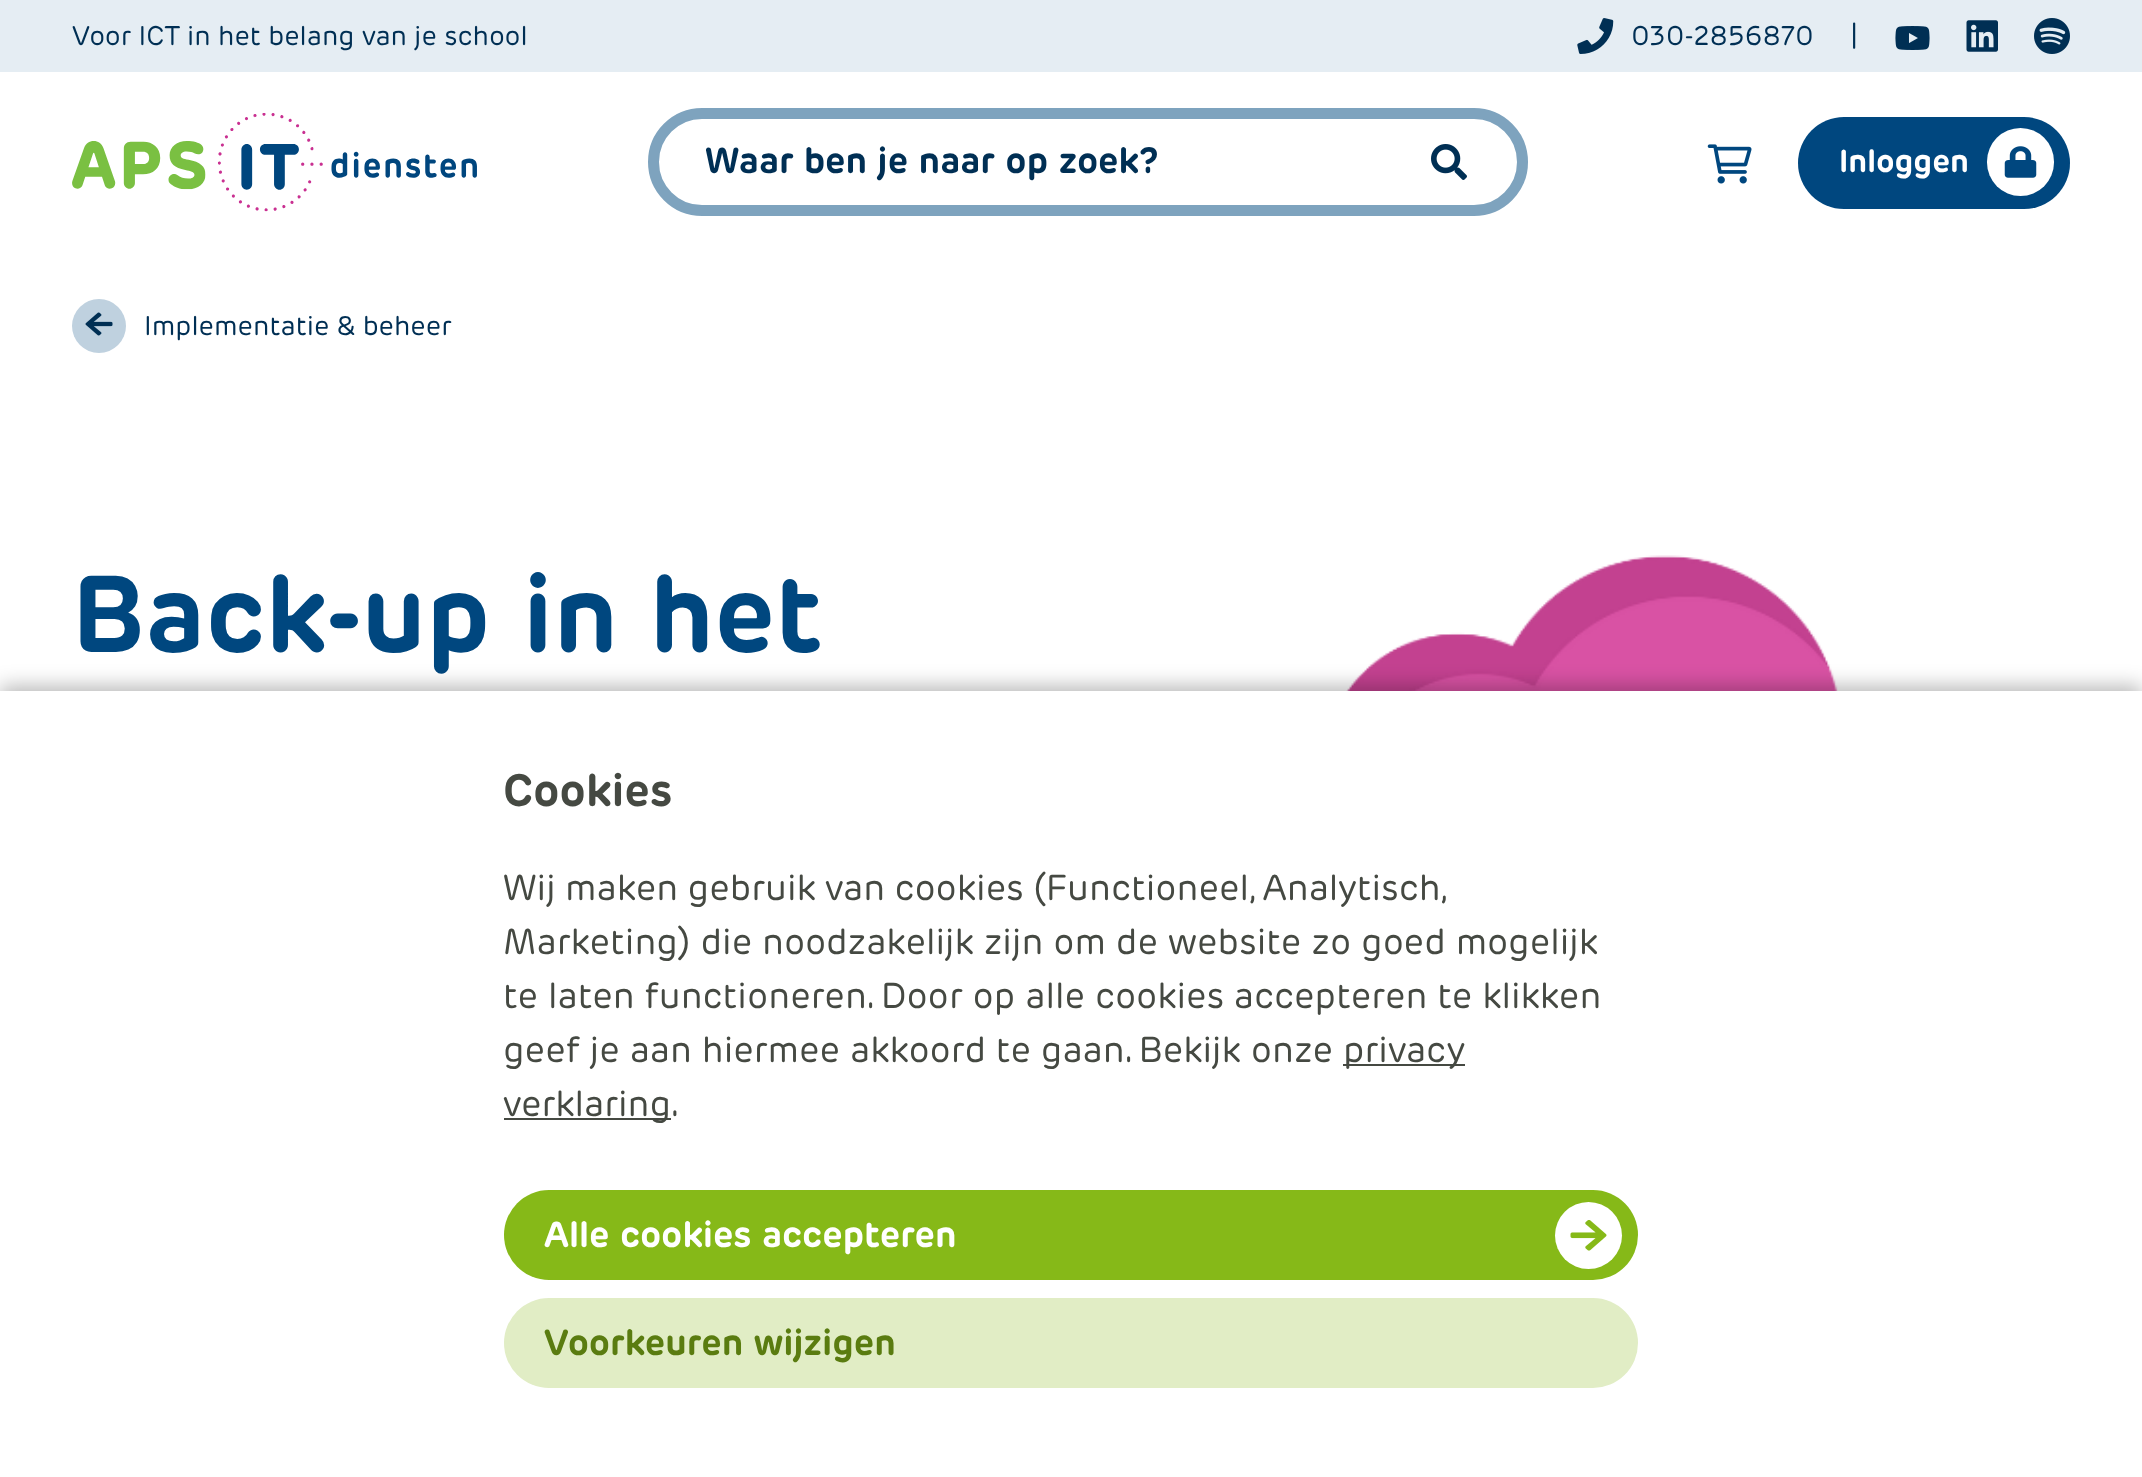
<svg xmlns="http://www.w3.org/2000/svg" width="2142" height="1477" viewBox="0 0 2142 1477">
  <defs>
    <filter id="blur1" x="-50%" y="-200%" width="200%" height="500%"><feGaussianBlur stdDeviation="10"/></filter>
  </defs>
  <rect width="100%" height="100%" fill="#ffffff"/>
  <rect x="0" y="0" width="2142" height="72" fill="#e5edf3"/>
  <text x="72" y="45" font-family="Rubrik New" font-size="27" fill="#002f54">Voor ICT in het belang van je school</text>
  <image x="1577" y="18" width="37" height="36" href="img1.png"/>
  <text x="1631" y="45" font-family="Rubrik New" font-size="27" fill="#002f54">030-2856870</text>
  <text x="1850" y="45" font-family="Rubrik New" font-size="27" fill="#002f54">|</text>
  <image x="1895" y="26" width="35" height="24" href="img2.png"/>
  <image x="1966" y="20" width="32" height="32" href="img3.png"/>
  <image x="2034" y="18" width="36" height="36" href="img4.png"/>
  <image x="72" y="113" width="405" height="99" href="img5.png"/>
  <rect x="653.5" y="113.5" width="869" height="97" rx="48.5" fill="none" stroke="#7ea3be" stroke-width="11"/>
  <text x="705" y="173" font-family="Rubrik New" font-size="36" font-weight="bold" fill="#002f54">Waar ben je naar op zoek?</text>
  <image x="1431" y="144" width="36" height="36" href="img6.png"/>
  <image x="1707" y="144" width="45" height="40" href="img7.png"/>
  <rect x="1798" y="117" width="272" height="92" rx="46" fill="#00477f"/>
  <text x="1839" y="172" font-family="Rubrik New" font-size="31.5" font-weight="bold" fill="#ffffff">Inloggen</text>
  <rect x="1987" y="128" width="67" height="68" rx="33.5" fill="#ffffff"/>
  <image x="2004" y="146" width="33" height="32" href="img8.png"/>
  <circle cx="99" cy="326" r="27" fill="#bfd1df"/>
  <image x="85" y="312" width="28" height="24" href="img9.png"/>
  <text x="144" y="335" font-family="Rubrik New" font-size="27" fill="#002f54">Implementatie &amp; beheer</text>
  <text x="72" y="652" font-family="Rubrik New" font-size="108" font-weight="bold" fill="#00477f">Back-up in het</text>
  <image x="1346" y="555" width="492" height="136" href="img10.png"/>
  <rect x="0" y="686" width="2142" height="788" fill="#000000" fill-opacity="0.28" filter="url(#blur1)"/>
  <rect x="0" y="691" width="2142" height="786" fill="#ffffff"/>
  <text x="503" y="806" font-family="Rubrik New" font-size="45" font-weight="bold" fill="#454942">Cookies</text>
  <text x="503" y="900" word-spacing="-0.5" font-family="Rubrik New" font-size="36" fill="#454942">Wij maken gebruik van cookies (Functioneel, Analytisch,</text>
  <text x="503" y="954" font-family="Rubrik New" font-size="36" fill="#454942">Marketing) die noodzakelijk zijn om de website zo goed mogelijk</text>
  <text x="503" y="1008" font-family="Rubrik New" font-size="36" fill="#454942">te laten functioneren. Door op alle cookies accepteren te klikken</text>
  <text x="503" y="1062" font-family="Rubrik New" font-size="36" fill="#454942">geef je aan hiermee akkoord te gaan. Bekijk onze</text>
  <rect x="1343" y="1064" width="122" height="2" fill="#454942"/>
  <text x="1343" y="1062" font-family="Rubrik New" font-size="36" fill="#454942">privacy</text>
  <rect x="504" y="1118" width="167" height="2" fill="#454942"/>
  <text x="503" y="1116" font-family="Rubrik New" font-size="36" fill="#454942">verklaring.</text>
  <rect x="504" y="1190" width="1134" height="90" rx="45" fill="#86b918"/>
  <text x="544" y="1247" font-family="Rubrik New" font-size="36" font-weight="bold" fill="#ffffff">Alle cookies accepteren</text>
  <circle cx="1588.5" cy="1235.5" r="33.5" fill="#ffffff"/>
  <image x="1570" y="1220" width="37" height="31" href="img11.png"/>
  <rect x="504" y="1298" width="1134" height="90" rx="45" fill="#e1edc5"/>
  <text x="544" y="1355" font-family="Rubrik New" font-size="36" font-weight="bold" fill="#5a7c10">Voorkeuren wijzigen</text>
</svg>
